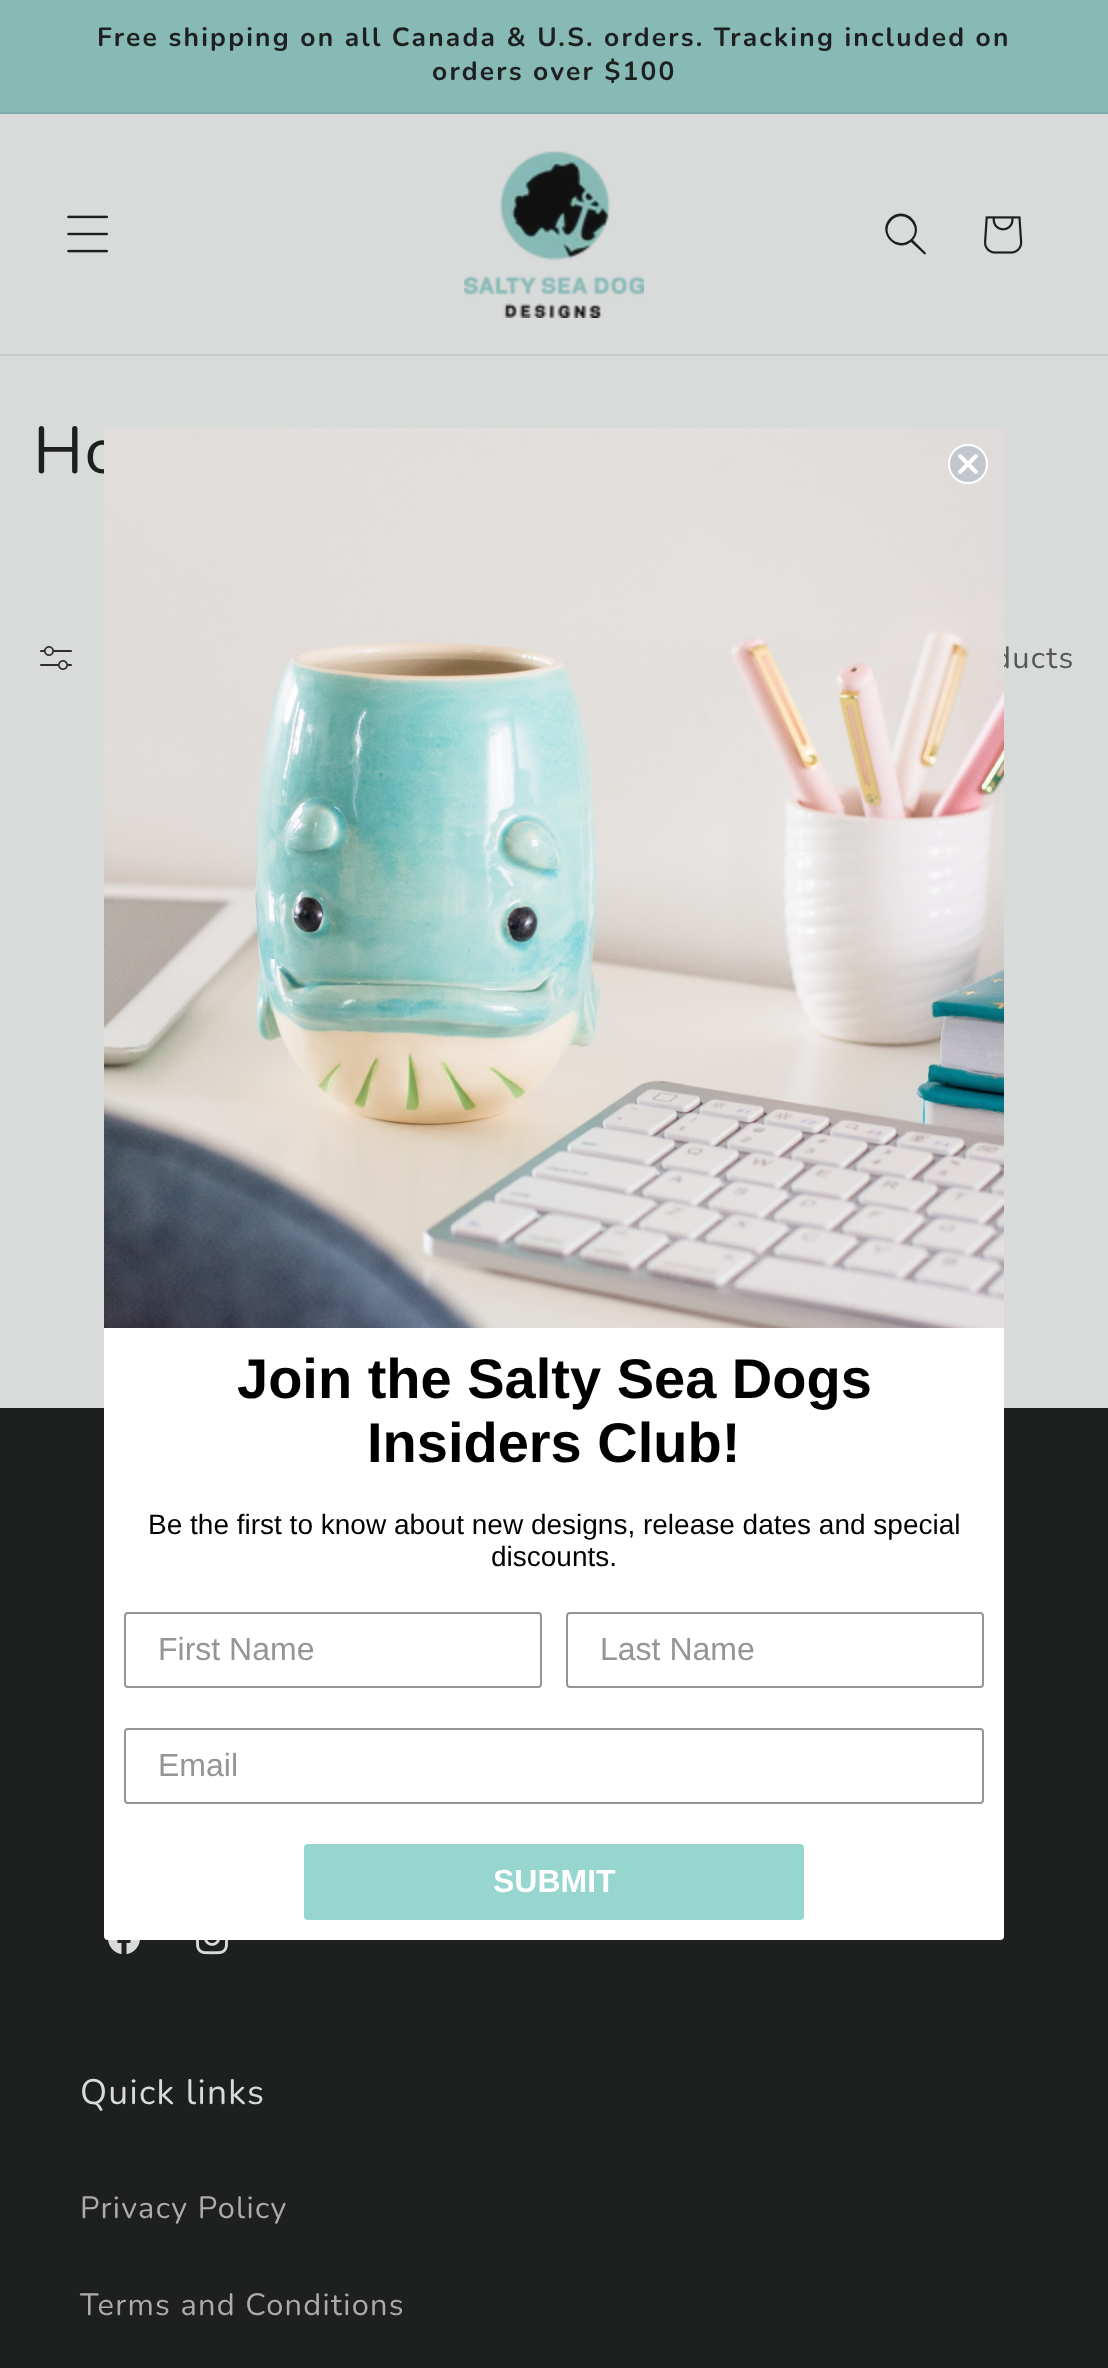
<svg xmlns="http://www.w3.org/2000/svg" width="1108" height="2368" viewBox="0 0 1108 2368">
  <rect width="100%" height="100%" fill="#d9dada"/>
  <rect x="0" y="0" width="1108" height="112" fill="#87b9b5"/>
  <rect x="0" y="112" width="1108" height="2" fill="#7eadaa"/>
  <text x="97" y="46" font-family="Nunito" font-size="26.4" font-weight="bold" letter-spacing="2.2" fill="#1e1f1f">Free shipping on all Canada &amp; U.S. orders. Tracking included on</text>
  <text x="432" y="80" font-family="Nunito" font-size="26.4" font-weight="bold" letter-spacing="2.2" fill="#1e1f1f">orders over $100</text>
  <rect x="0" y="354" width="1108" height="2" fill="#cacbcb"/>
  <image x="67" y="215" width="41" height="38" href="img1.png"/>
  <image x="464" y="151" width="180" height="167" href="img2.png"/>
  <path d="M911 239C898 251 879 233 892 220C904 208 923 227 911 239M911 242C896 254 876 232 890 218C905 204 926 225 913 240L926 253C926 254 925 255 924 254Z" fill="#1e1f1f" fill-rule="evenodd"/>
  <image x="984" y="216" width="39" height="38" href="img3.png"/>
  <text x="33" y="473" font-family="Nunito" font-size="66" letter-spacing="1.3" fill="#1e1f1f">Ho</text>
  <image x="40" y="646" width="32" height="24" href="img4.png"/>
  <text x="993" y="668" font-family="Nunito" font-size="30.75" letter-spacing="1.3" fill="#565757">ducts</text>
  <rect x="0" y="1408" width="1108" height="960" fill="#1e1f1f"/>
  <rect x="104" y="428" width="900" height="1512" rx="4" fill="#ffffff"/>
  <image x="104" y="428" width="900" height="900" href="img5.png"/>
  <circle cx="968" cy="464" r="19" fill="#b4bbc3" fill-opacity="0.65" stroke="#ffffff" stroke-width="2"/>
  <path d="M960 456L976 472M960 472L976 456Z" fill="none" stroke="#ffffff" stroke-width="4" stroke-linecap="round" stroke-linejoin="round"/>
  <text x="237" y="1398" font-family="Liberation Sans" font-size="56" font-weight="bold" fill="#000000">Join the Salty Sea Dogs</text>
  <text x="367" y="1462" font-family="Liberation Sans" font-size="56" font-weight="bold" fill="#000000">Insiders Club!</text>
  <text x="148" y="1534" font-family="Liberation Sans" font-size="28" fill="#000000">Be the first to know about new designs, release dates and special</text>
  <text x="491" y="1566" font-family="Liberation Sans" font-size="28" fill="#000000">discounts.</text>
  <rect x="125" y="1613" width="416" height="74" rx="3" fill="none" stroke="#949596" stroke-width="2"/>
  <text x="158" y="1660" font-family="Liberation Sans" font-size="32" fill="#949596">First Name</text>
  <rect x="567" y="1613" width="416" height="74" rx="3" fill="none" stroke="#949596" stroke-width="2"/>
  <text x="600" y="1660" font-family="Liberation Sans" font-size="32" fill="#949596">Last Name</text>
  <rect x="125" y="1729" width="858" height="74" rx="3" fill="none" stroke="#949596" stroke-width="2"/>
  <text x="158" y="1776" font-family="Liberation Sans" font-size="32" fill="#949596">Email</text>
  <rect x="304" y="1844" width="500" height="76" rx="4" fill="#97d5cf"/>
  <text x="493" y="1892" font-family="Liberation Sans" font-size="32" font-weight="bold" fill="#ffffff">SUBMIT</text>
  <image x="108" y="1940" width="32" height="15" href="img6.png"/>
  <image x="196" y="1940" width="32" height="15" href="img7.png"/>
  <text x="80" y="2104" font-family="Nunito" font-size="35.25" letter-spacing="1.3" fill="#d9dada">Quick links</text>
  <text x="80" y="2218" font-family="Nunito" font-size="30.75" letter-spacing="1.3" fill="#ababab">Privacy Policy</text>
  <text x="80" y="2315" font-family="Nunito" font-size="30.75" letter-spacing="1.3" fill="#ababab">Terms and Conditions</text>
</svg>
